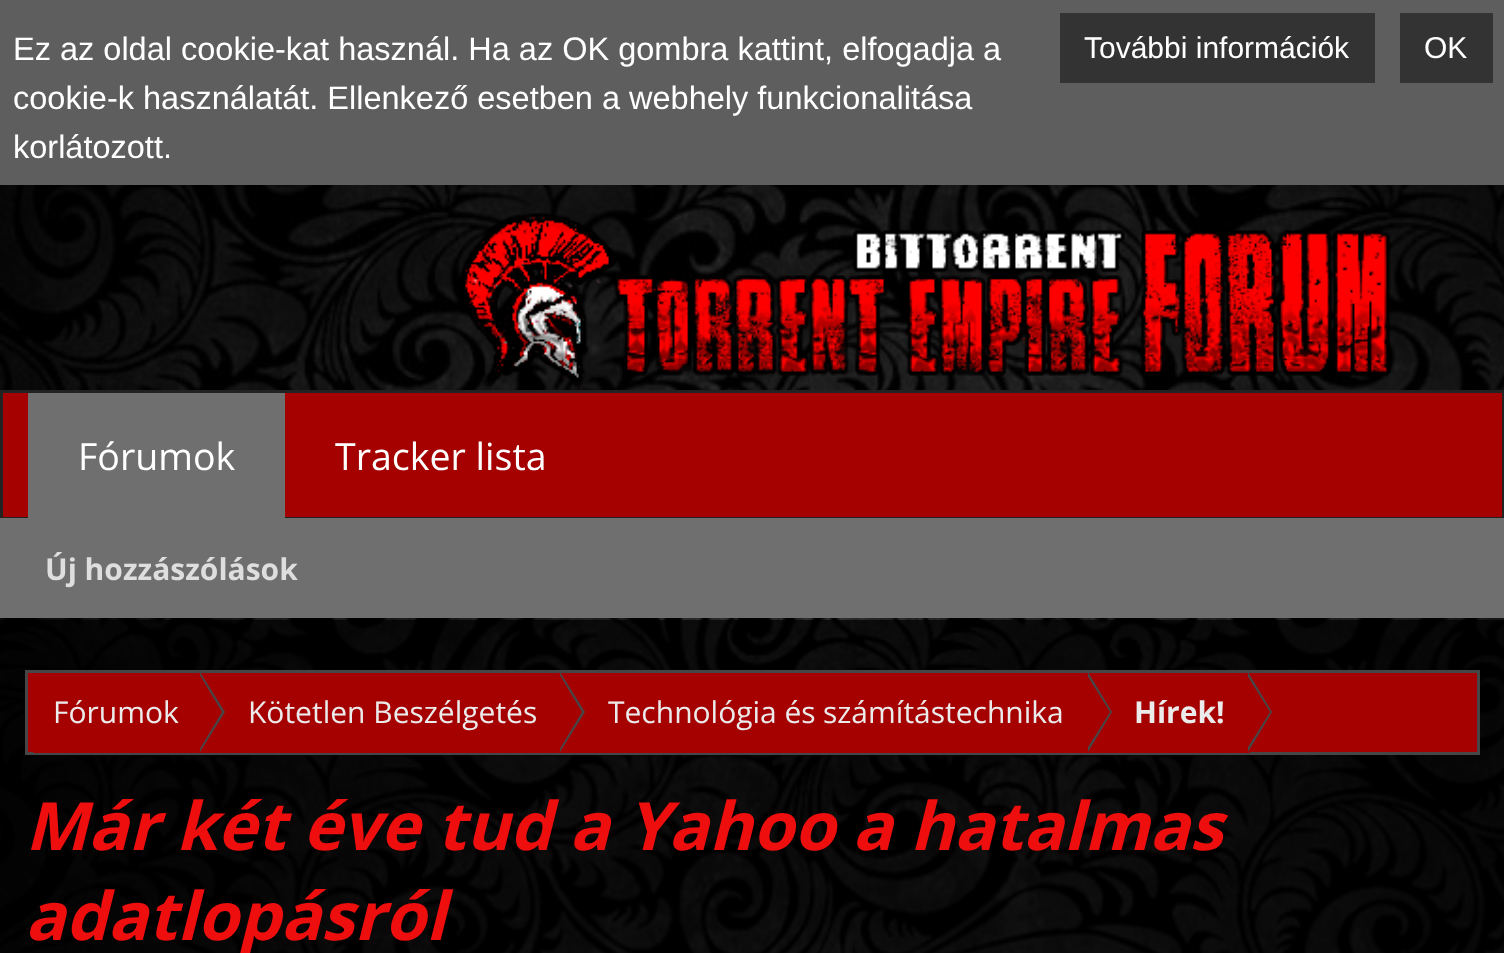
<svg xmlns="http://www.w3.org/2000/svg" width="1504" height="953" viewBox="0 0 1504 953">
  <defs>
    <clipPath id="clip1"><rect x="28" y="673" width="1450" height="80"/></clipPath>
    <clipPath id="clip2"><rect x="608" y="673" width="457" height="80"/></clipPath>
  </defs>
  <rect width="100%" height="100%" fill="#ffffff"/>
  <image x="0" y="185" width="1504" height="768" href="img1.png"/>
  <rect x="0" y="0" width="1504" height="185" fill="#5e5e5e"/>
  <text x="13" y="60" font-family="Liberation Sans" font-size="32.5" fill="#ffffff">Ez az oldal cookie-kat használ. Ha az OK gombra kattint, elfogadja a</text>
  <text x="13" y="109" font-family="Liberation Sans" font-size="32.5" fill="#ffffff">cookie-k használatát. Ellenkező esetben a webhely funkcionalitása</text>
  <text x="13" y="158" font-family="Liberation Sans" font-size="32.5" fill="#ffffff">korlátozott.</text>
  <rect x="1060" y="13" width="315" height="70" fill="#333333"/>
  <text x="1084" y="58" font-family="Liberation Sans" font-size="30" fill="#ffffff">További információk</text>
  <rect x="1400" y="13" width="93" height="70" fill="#333333"/>
  <text x="1424" y="58" font-family="Liberation Sans" font-size="30" fill="#ffffff">OK</text>
  <image x="460" y="213" width="931" height="177" href="img2.png"/>
  <rect x="1.5" y="391.5" width="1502" height="127" fill="#a60101" stroke="#222222" stroke-width="3"/>
  <rect x="28" y="393" width="257" height="125" fill="#6f6f6f"/>
  <text x="78" y="470" font-family="Open Sans" font-size="37.5" fill="#ffffff">Fórumok</text>
  <rect x="0" y="518" width="1504" height="100" fill="#6f6f6f"/>
  <text x="45" y="580" font-family="Open Sans" font-size="30" font-weight="bold" fill="#dedede">Új hozzászólások</text>
  <text x="335" y="470" font-family="Open Sans" font-size="37.5" fill="#ffffff">Tracker lista</text>
  <rect x="0" y="620" width="1504" height="333" fill="#000000" fill-opacity="0.7"/>
  <rect x="26.5" y="671.5" width="1452" height="82" fill="#a60101" stroke="#464646" stroke-width="3"/>
  <g clip-path="url(#clip1)">
    <path d="M41 673H203V755H41C34 755 28 749 28 742V686C28 679 34 673 41 673Z" fill="#a60101"/>
  </g>
  <text x="53" y="723" font-family="Open Sans" font-size="30" fill="#ebebeb">Fórumok</text>
  <path d="M200 752V672L225 712Z" fill="#464646"/>
  <path d="M198 752V672L222 712Z" fill="#a60101"/>
  <rect x="203" y="752" width="1047" height="1" fill="#a60101"/>
  <text x="248" y="723" font-family="Open Sans" font-size="30" fill="#ebebeb">Kötetlen Beszélgetés</text>
  <path d="M560 752V672L585 712Z" fill="#464646"/>
  <path d="M558 752V672L582 712Z" fill="#a60101"/>
  <g clip-path="url(#clip2)">
    <text x="608" y="723" font-family="Open Sans" font-size="30" fill="#ebebeb">Technológia és</text>
  </g>
  <text x="823" y="723" font-family="Open Sans" font-size="30" fill="#ebebeb">számítástechnika</text>
  <path d="M1088 752V672L1112 712Z" fill="#464646"/>
  <path d="M1085 752V672L1110 712Z" fill="#a60101"/>
  <text x="1134" y="723" font-family="Open Sans" font-size="30" font-weight="bold" fill="#ebebeb">Hírek!</text>
  <path d="M1248 752V672L1272 712Z" fill="#464646"/>
  <path d="M1245 752V672L1270 712Z" fill="#a60101"/>
  <text x="25" y="850" font-family="Open Sans" font-size="66.7" font-weight="bold" font-style="italic" fill="#ee0e0e">Már két éve tud a Yahoo a hatalmas</text>
  <text x="25" y="940" font-family="Open Sans" font-size="66.7" font-weight="bold" font-style="italic" fill="#ee0e0e">adatlopásról</text>
</svg>
